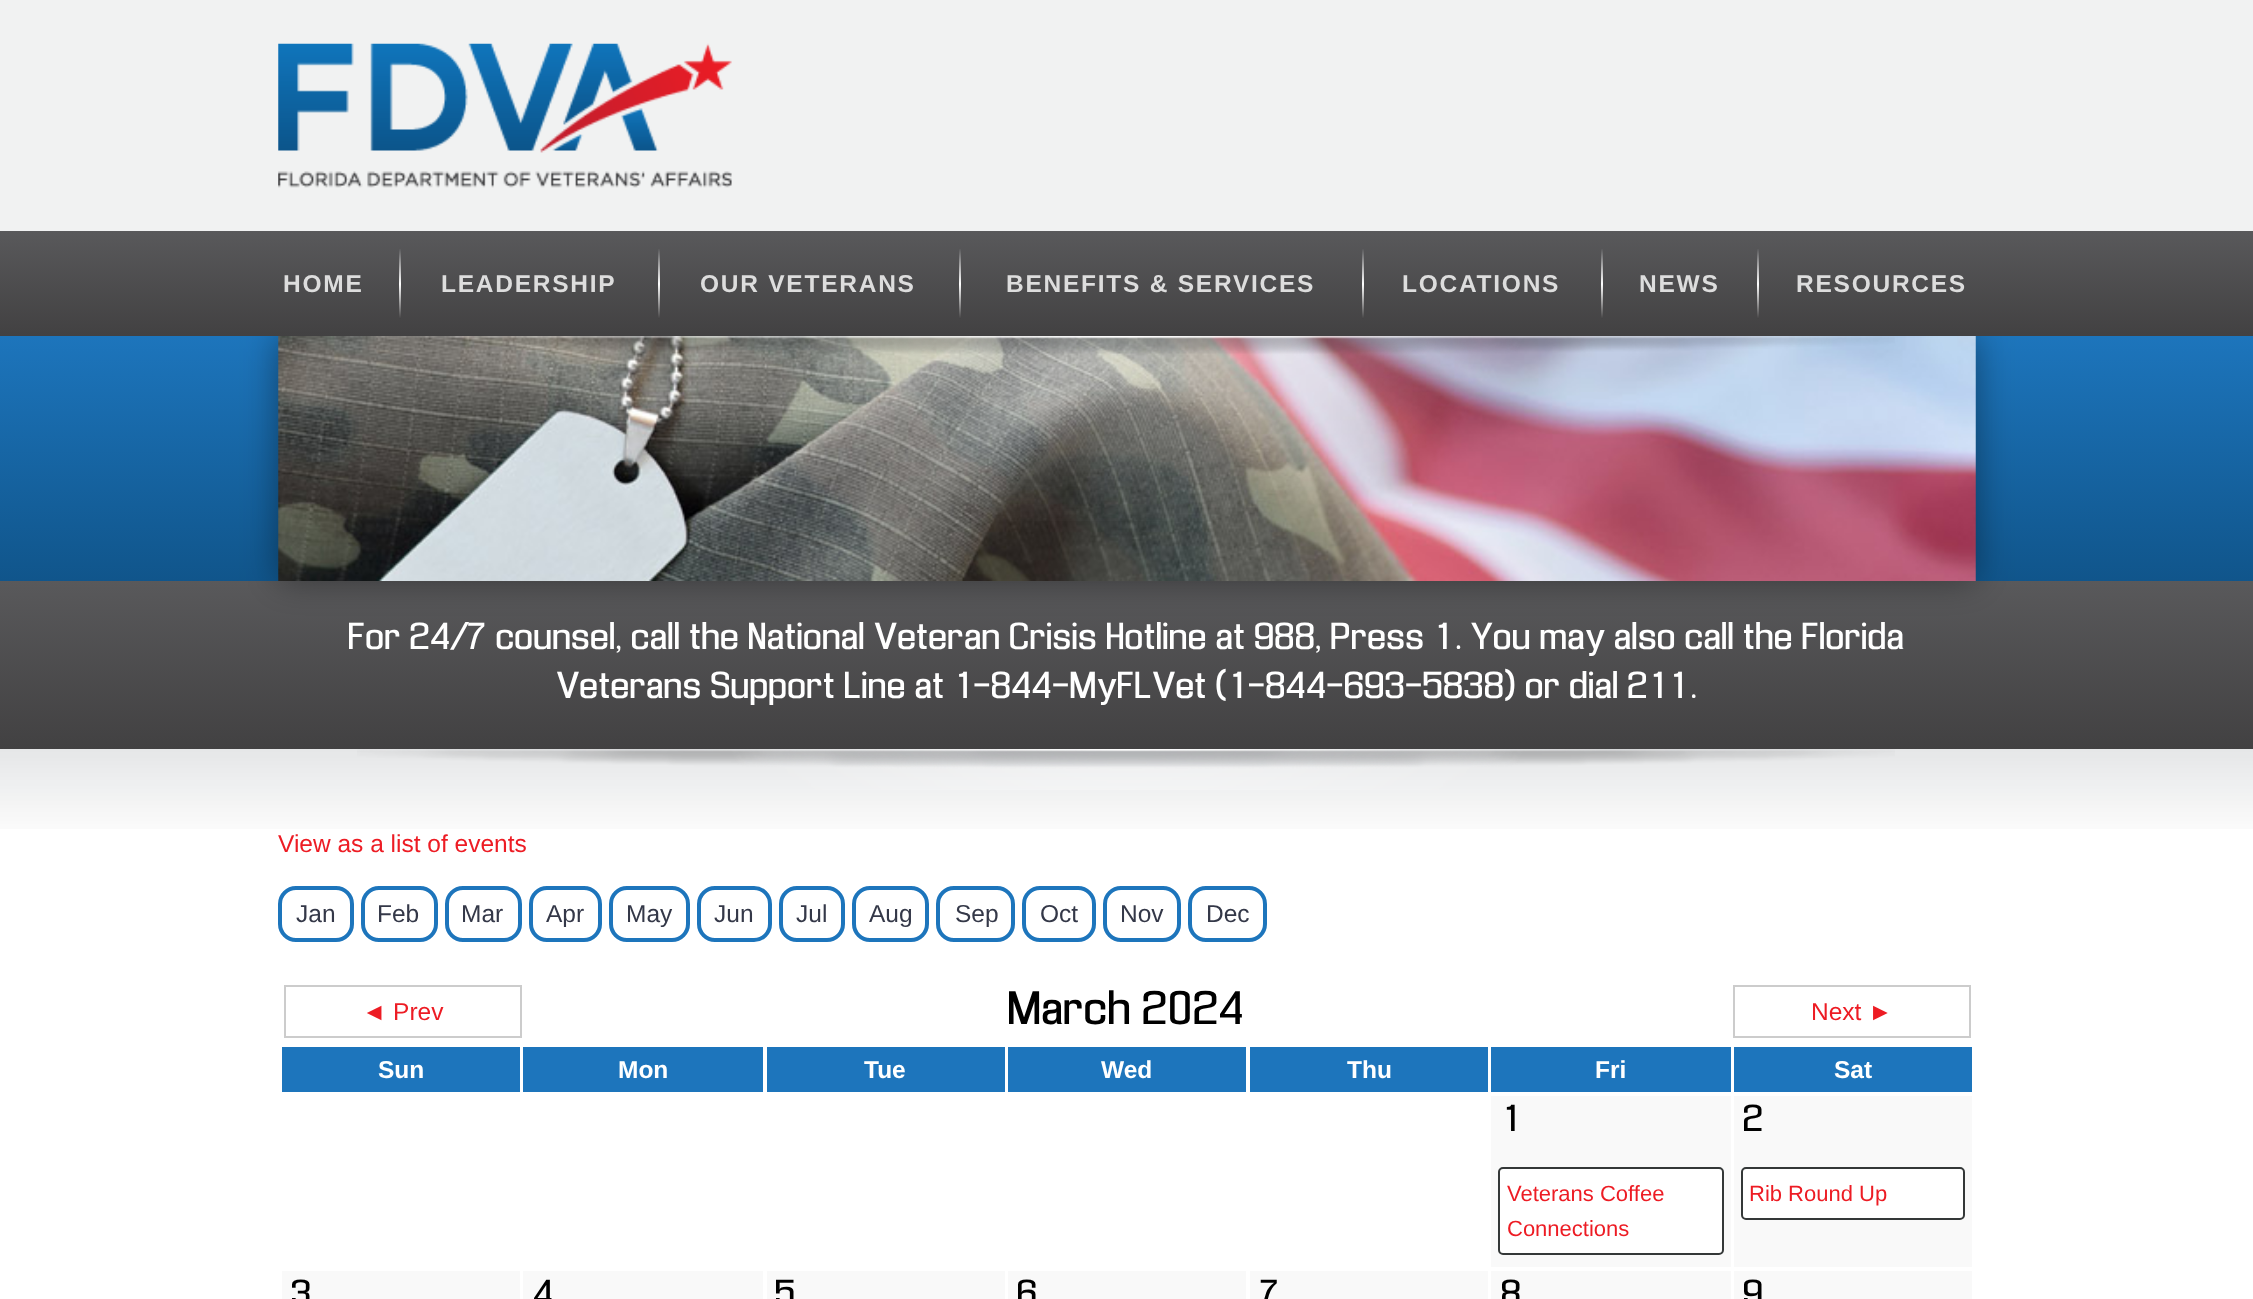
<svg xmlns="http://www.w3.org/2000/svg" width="2253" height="1299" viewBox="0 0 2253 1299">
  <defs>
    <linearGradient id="g1" gradientUnits="userSpaceOnUse" x1="1127" y1="336" x2="1127" y2="581"><stop offset="0" stop-color="#1d75bc"/><stop offset="1" stop-color="#10558b"/></linearGradient>
    <linearGradient id="g2" gradientUnits="userSpaceOnUse" x1="1127" y1="581" x2="1127" y2="749"><stop offset="0" stop-color="#59595b"/><stop offset="1" stop-color="#424142"/></linearGradient>
    <filter id="blur1" x="-50%" y="-200%" width="200%" height="500%"><feGaussianBlur stdDeviation="17.5"/></filter>
    <linearGradient id="g3" gradientUnits="userSpaceOnUse" x1="1127" y1="231" x2="1127" y2="336"><stop offset="0" stop-color="#59595b"/><stop offset="1" stop-color="#424142"/></linearGradient>
    <linearGradient id="g4" gradientUnits="userSpaceOnUse" x1="400" y1="249" x2="400" y2="319"><stop offset="0" stop-color="#59595b"/><stop offset="0.5" stop-color="#ffffff"/><stop offset="1" stop-color="#424142"/></linearGradient>
    <linearGradient id="g5" gradientUnits="userSpaceOnUse" x1="659" y1="249" x2="659" y2="319"><stop offset="0" stop-color="#59595b"/><stop offset="0.5" stop-color="#ffffff"/><stop offset="1" stop-color="#424142"/></linearGradient>
    <linearGradient id="g6" gradientUnits="userSpaceOnUse" x1="960" y1="249" x2="960" y2="319"><stop offset="0" stop-color="#59595b"/><stop offset="0.5" stop-color="#ffffff"/><stop offset="1" stop-color="#424142"/></linearGradient>
    <linearGradient id="g7" gradientUnits="userSpaceOnUse" x1="1362" y1="249" x2="1362" y2="319"><stop offset="0" stop-color="#59595b"/><stop offset="0.5" stop-color="#ffffff"/><stop offset="1" stop-color="#424142"/></linearGradient>
    <linearGradient id="g8" gradientUnits="userSpaceOnUse" x1="1602" y1="249" x2="1602" y2="319"><stop offset="0" stop-color="#59595b"/><stop offset="0.5" stop-color="#ffffff"/><stop offset="1" stop-color="#424142"/></linearGradient>
    <linearGradient id="g9" gradientUnits="userSpaceOnUse" x1="1758" y1="249" x2="1758" y2="319"><stop offset="0" stop-color="#59595b"/><stop offset="0.5" stop-color="#ffffff"/><stop offset="1" stop-color="#424142"/></linearGradient>
  </defs>
  <rect width="100%" height="100%" fill="#ffffff"/>
  <rect x="0" y="0" width="2253" height="231" fill="#f1f2f2"/>
  <image x="278" y="43" width="454" height="145" href="img1.png"/>
  <rect x="0" y="336" width="2253" height="245" fill="url(#g1)"/>
  <rect x="0" y="581" width="2253" height="168" fill="url(#g2)"/>
  <rect x="278" y="336" width="1698" height="245" fill="#000000" fill-opacity="0.4" filter="url(#blur1)"/>
  <rect x="0" y="231" width="2253" height="105" fill="url(#g3)"/>
  <text x="283" y="292" font-family="Liberation Sans" font-size="24.5" font-weight="bold" letter-spacing="1.75" fill="#dddddd">HOME</text>
  <rect x="399" y="249" width="2" height="70" fill="url(#g4)"/>
  <text x="441" y="292" font-family="Liberation Sans" font-size="24.5" font-weight="bold" letter-spacing="1.75" fill="#dddddd">LEADERSHIP</text>
  <rect x="658" y="249" width="2" height="70" fill="url(#g5)"/>
  <text x="700" y="292" font-family="Liberation Sans" font-size="24.5" font-weight="bold" letter-spacing="1.75" fill="#dddddd">OUR VETERANS</text>
  <rect x="959" y="249" width="2" height="70" fill="url(#g6)"/>
  <text x="1006" y="292" font-family="Liberation Sans" font-size="24.5" font-weight="bold" letter-spacing="1.75" fill="#dddddd">BENEFITS &amp; SERVICES</text>
  <rect x="1362" y="249" width="2" height="70" fill="url(#g7)"/>
  <text x="1402" y="292" font-family="Liberation Sans" font-size="24.5" font-weight="bold" letter-spacing="1.75" fill="#dddddd">LOCATIONS</text>
  <rect x="1601" y="249" width="2" height="70" fill="url(#g8)"/>
  <text x="1639" y="292" font-family="Liberation Sans" font-size="24.5" font-weight="bold" letter-spacing="1.75" fill="#dddddd">NEWS</text>
  <rect x="1757" y="249" width="2" height="70" fill="url(#g9)"/>
  <text x="1796" y="292" font-family="Liberation Sans" font-size="24.5" font-weight="bold" letter-spacing="1.75" fill="#dddddd">RESOURCES</text>
  <image x="278" y="336" width="1698" height="245" href="img2.png"/>
  <image x="344" y="336" width="1551" height="185" href="img3.png"/>
  <text x="349" y="649" font-family="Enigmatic" font-size="35" fill="#ffffff">For 24/7 counsel, call the National Veteran Crisis Hotline at 988, Press 1. You may also call the Florida</text>
  <text x="557" y="698" font-family="Enigmatic" font-size="35" fill="#ffffff">Veterans Support Line at 1-844-MyFLVet (1-844-693-5838) or dial 211.</text>
  <image x="0" y="749" width="2253" height="80" href="img4.png"/>
  <image x="357" y="749" width="1538" height="41" href="img5.png"/>
  <text x="278" y="852" font-family="Liberation Sans" font-size="24.5" fill="#ed1c24">View as a list of events</text>
  <rect x="280" y="888" width="72" height="52" rx="16" fill="none" stroke="#1d75bc" stroke-width="4"/>
  <text x="296" y="922" font-family="Liberation Sans" font-size="24.5" fill="#343848">Jan</text>
  <rect x="363" y="888" width="73" height="52" rx="16" fill="none" stroke="#1d75bc" stroke-width="4"/>
  <text x="377" y="922" font-family="Liberation Sans" font-size="24.5" fill="#343848">Feb</text>
  <rect x="447" y="888" width="73" height="52" rx="16" fill="none" stroke="#1d75bc" stroke-width="4"/>
  <text x="461" y="922" font-family="Liberation Sans" font-size="24.5" fill="#343848">Mar</text>
  <rect x="531" y="888" width="69" height="52" rx="16" fill="none" stroke="#1d75bc" stroke-width="4"/>
  <text x="546" y="922" font-family="Liberation Sans" font-size="24.5" fill="#343848">Apr</text>
  <rect x="611" y="888" width="77" height="52" rx="16" fill="none" stroke="#1d75bc" stroke-width="4"/>
  <text x="626" y="922" font-family="Liberation Sans" font-size="24.5" fill="#343848">May</text>
  <rect x="699" y="888" width="71" height="52" rx="16" fill="none" stroke="#1d75bc" stroke-width="4"/>
  <text x="714" y="922" font-family="Liberation Sans" font-size="24.5" fill="#343848">Jun</text>
  <rect x="781" y="888" width="62" height="52" rx="16" fill="none" stroke="#1d75bc" stroke-width="4"/>
  <text x="796" y="922" font-family="Liberation Sans" font-size="24.5" fill="#343848">Jul</text>
  <rect x="854" y="888" width="73" height="52" rx="16" fill="none" stroke="#1d75bc" stroke-width="4"/>
  <text x="869" y="922" font-family="Liberation Sans" font-size="24.5" fill="#343848">Aug</text>
  <rect x="938" y="888" width="75" height="52" rx="16" fill="none" stroke="#1d75bc" stroke-width="4"/>
  <text x="955" y="922" font-family="Liberation Sans" font-size="24.5" fill="#343848">Sep</text>
  <rect x="1024" y="888" width="70" height="52" rx="16" fill="none" stroke="#1d75bc" stroke-width="4"/>
  <text x="1040" y="922" font-family="Liberation Sans" font-size="24.5" fill="#343848">Oct</text>
  <rect x="1105" y="888" width="74" height="52" rx="16" fill="none" stroke="#1d75bc" stroke-width="4"/>
  <text x="1120" y="922" font-family="Liberation Sans" font-size="24.5" fill="#343848">Nov</text>
  <rect x="1190" y="888" width="75" height="52" rx="16" fill="none" stroke="#1d75bc" stroke-width="4"/>
  <text x="1206" y="922" font-family="Liberation Sans" font-size="24.5" fill="#343848">Dec</text>
  <rect x="285" y="986" width="236" height="51" fill="none" stroke="#cccccc" stroke-width="2"/>
  <text x="362" y="1020" font-family="Liberation Sans" font-size="24.5" fill="#ed1c24">◄ Prev</text>
  <text x="1009" y="1024" font-family="Enigmatic" font-size="43.75" fill="#000000">March 2024</text>
  <rect x="1734" y="986" width="236" height="51" fill="none" stroke="#cccccc" stroke-width="2"/>
  <text x="1811" y="1020" font-family="Liberation Sans" font-size="24.5" fill="#ed1c24">Next ►</text>
  <rect x="282" y="1047" width="238" height="45" fill="#1d75bc"/>
  <text x="378" y="1078" font-family="Liberation Sans" font-size="24.5" font-weight="bold" fill="#ffffff">Sun</text>
  <rect x="523" y="1047" width="240" height="45" fill="#1d75bc"/>
  <text x="618" y="1078" font-family="Liberation Sans" font-size="24.5" font-weight="bold" fill="#ffffff">Mon</text>
  <rect x="767" y="1047" width="238" height="45" fill="#1d75bc"/>
  <text x="864" y="1078" font-family="Liberation Sans" font-size="24.5" font-weight="bold" fill="#ffffff">Tue</text>
  <rect x="1008" y="1047" width="238" height="45" fill="#1d75bc"/>
  <text x="1101" y="1078" font-family="Liberation Sans" font-size="24.5" font-weight="bold" fill="#ffffff">Wed</text>
  <rect x="1250" y="1047" width="238" height="45" fill="#1d75bc"/>
  <text x="1347" y="1078" font-family="Liberation Sans" font-size="24.5" font-weight="bold" fill="#ffffff">Thu</text>
  <rect x="1491" y="1047" width="240" height="45" fill="#1d75bc"/>
  <text x="1595" y="1078" font-family="Liberation Sans" font-size="24.5" font-weight="bold" fill="#ffffff">Fri</text>
  <rect x="1734" y="1047" width="238" height="45" fill="#1d75bc"/>
  <text x="1834" y="1078" font-family="Liberation Sans" font-size="24.5" font-weight="bold" fill="#ffffff">Sat</text>
  <rect x="1491" y="1096" width="240" height="171" fill="#f9f9f9"/>
  <text x="1502" y="1131" font-family="Enigmatic" font-size="35" fill="#000000">1</text>
  <rect x="1499" y="1168" width="224" height="86" rx="4" fill="#ffffff" stroke="#343838" stroke-width="2"/>
  <text x="1507" y="1201" font-family="Liberation Sans" font-size="22" fill="#ed1c24">Veterans Coffee</text>
  <text x="1507" y="1236" font-family="Liberation Sans" font-size="22" fill="#ed1c24">Connections</text>
  <rect x="1734" y="1096" width="238" height="171" fill="#f9f9f9"/>
  <text x="1744" y="1131" font-family="Enigmatic" font-size="35" fill="#000000">2</text>
  <rect x="1742" y="1168" width="222" height="51" rx="4" fill="#ffffff" stroke="#343838" stroke-width="2"/>
  <text x="1749" y="1201" font-family="Liberation Sans" font-size="22" fill="#ed1c24">Rib Round Up</text>
  <rect x="282" y="1271" width="238" height="28" fill="#f9f9f9"/>
  <text x="292" y="1306" font-family="Enigmatic" font-size="35" fill="#000000">3</text>
  <rect x="523" y="1271" width="240" height="28" fill="#f9f9f9"/>
  <text x="534" y="1306" font-family="Enigmatic" font-size="35" fill="#000000">4</text>
  <rect x="767" y="1271" width="238" height="28" fill="#f9f9f9"/>
  <text x="776" y="1306" font-family="Enigmatic" font-size="35" fill="#000000">5</text>
  <rect x="1008" y="1271" width="238" height="28" fill="#f9f9f9"/>
  <text x="1018" y="1306" font-family="Enigmatic" font-size="35" fill="#000000">6</text>
  <rect x="1250" y="1271" width="238" height="28" fill="#f9f9f9"/>
  <text x="1260" y="1306" font-family="Enigmatic" font-size="35" fill="#000000">7</text>
  <rect x="1491" y="1271" width="240" height="28" fill="#f9f9f9"/>
  <text x="1502" y="1306" font-family="Enigmatic" font-size="35" fill="#000000">8</text>
  <rect x="1734" y="1271" width="238" height="28" fill="#f9f9f9"/>
  <text x="1744" y="1306" font-family="Enigmatic" font-size="35" fill="#000000">9</text>
</svg>
